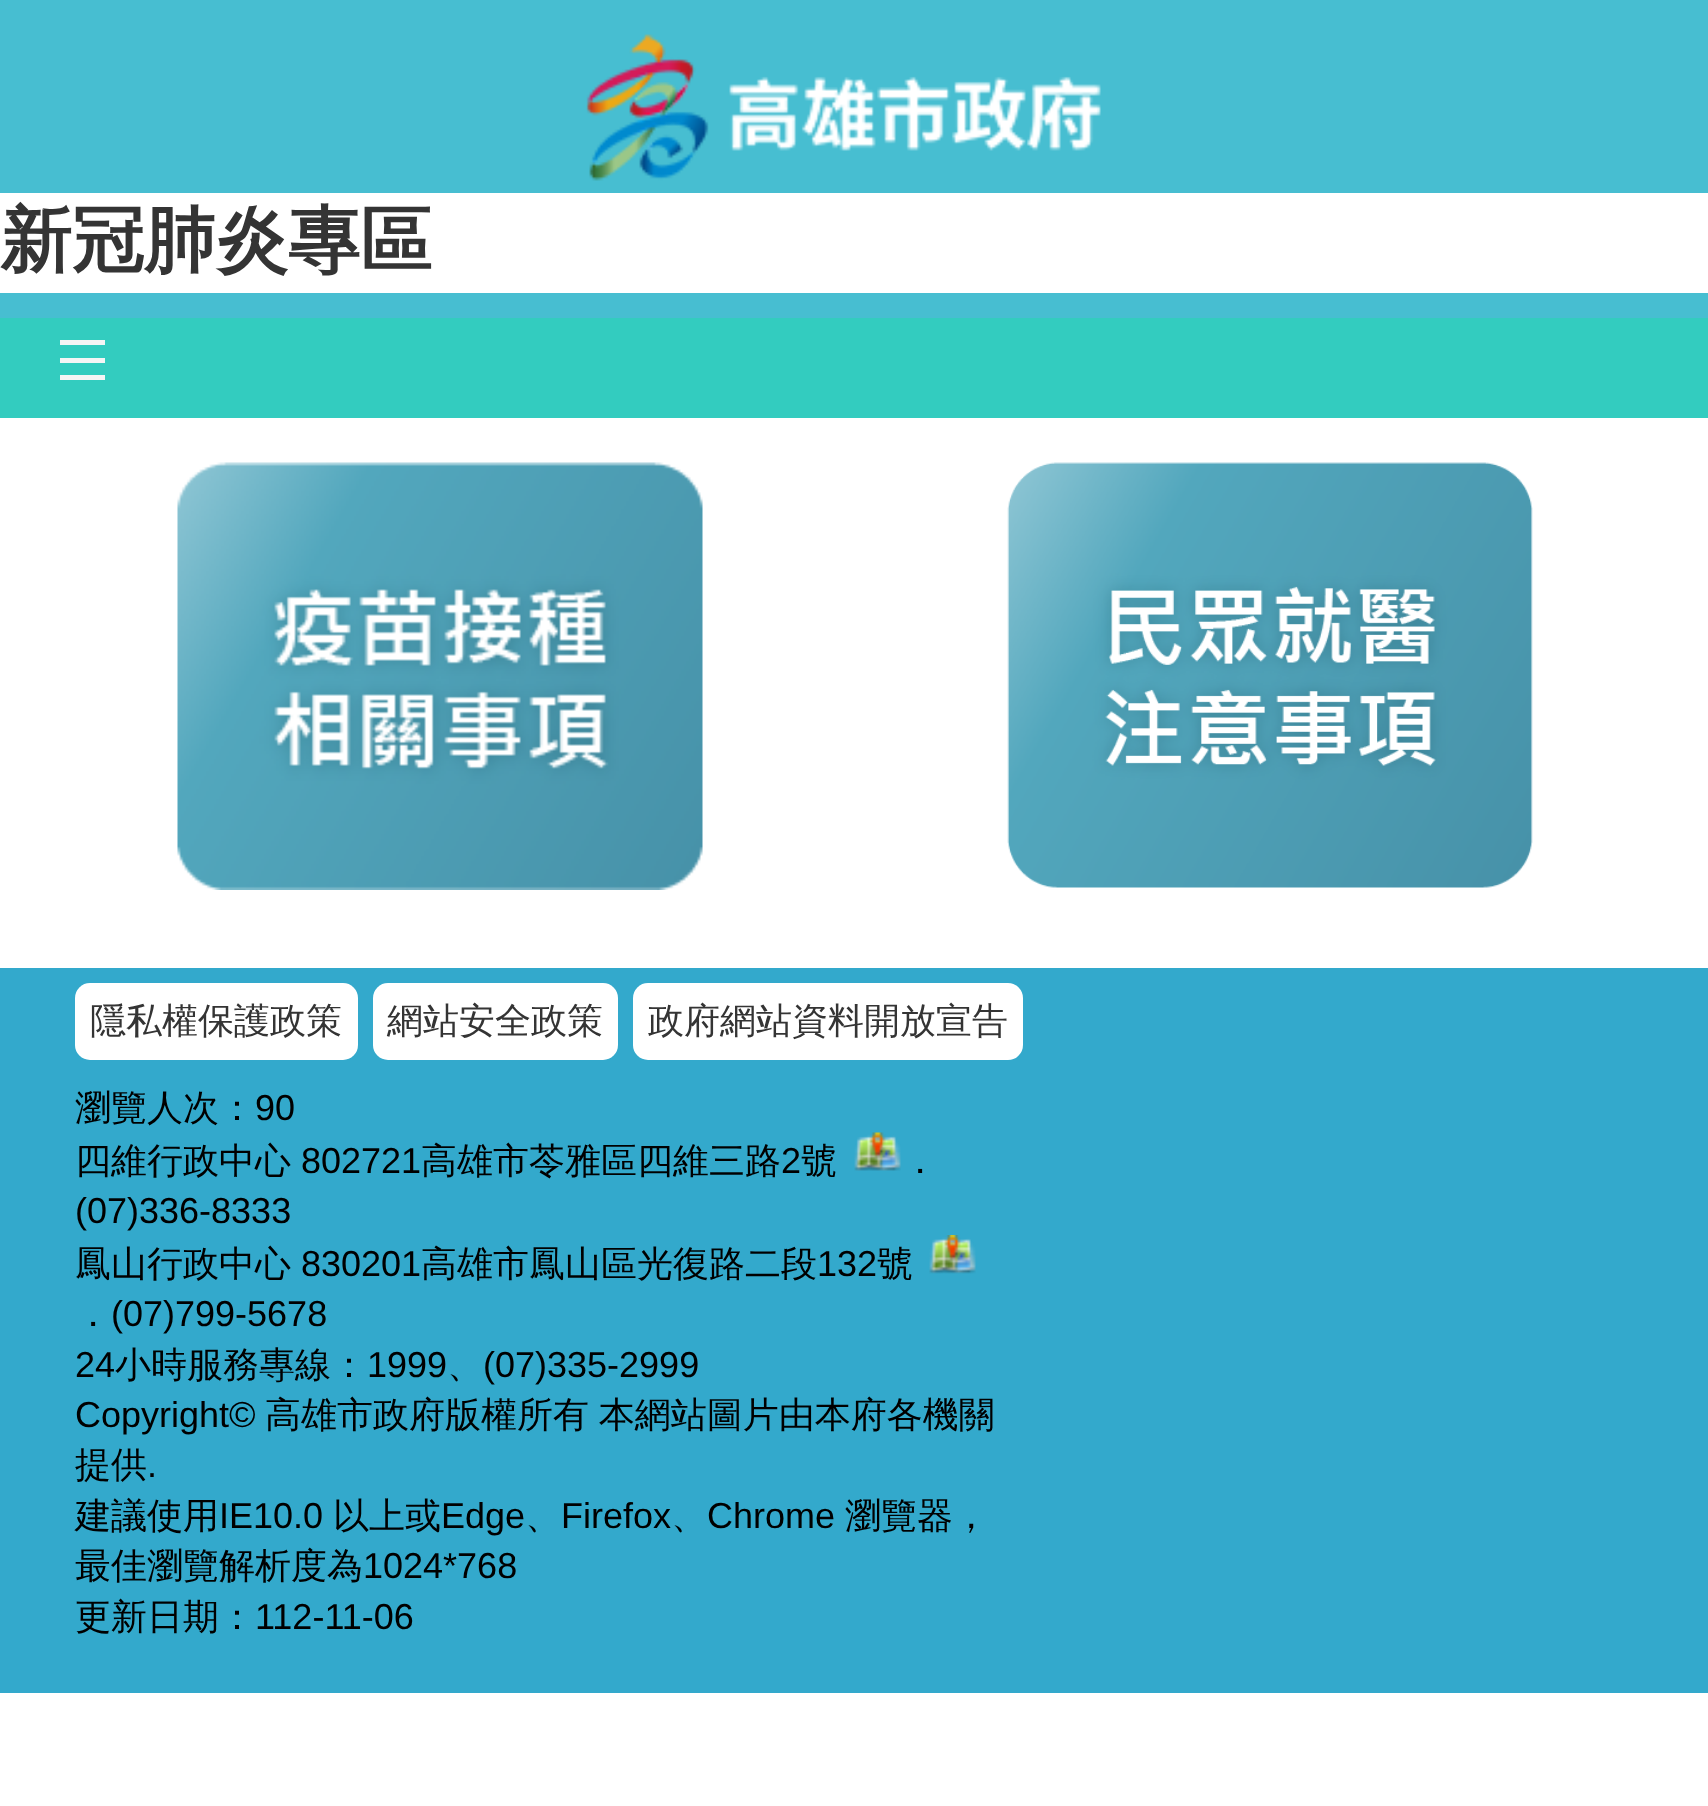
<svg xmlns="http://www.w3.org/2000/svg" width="1708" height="1806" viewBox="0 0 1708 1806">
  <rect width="100%" height="100%" fill="#ffffff"/>
  <rect x="0" y="0" width="1708" height="318" fill="#47bed1"/>
  <image x="586" y="34" width="515" height="147" href="img1.png"/>
  <rect x="0" y="193" width="1708" height="100" fill="#ffffff"/>
  <text x="0" y="265" font-family="WenQuanYi Zen Hei" font-size="72" font-weight="bold" fill="#343434">新冠肺炎專區</text>
  <rect x="0" y="318" width="1708" height="100" fill="#33ccbf"/>
  <rect x="60" y="375" width="45" height="5" fill="#f5f5f5"/>
  <rect x="60" y="358" width="45" height="5" fill="#f5f5f5"/>
  <rect x="60" y="340" width="45" height="5" fill="#f5f5f5"/>
  <image x="177" y="462" width="526" height="428" href="img2.png"/>
  <image x="1007" y="462" width="526" height="426" href="img3.png"/>
  <rect x="0" y="968" width="1708" height="725" fill="#33a9cc"/>
  <rect x="75" y="983" width="283" height="77" rx="15" fill="#ffffff"/>
  <text x="90" y="1033" font-family="WenQuanYi Zen Hei" font-size="36" font-weight="500" fill="#343434">隱私權保護政策</text>
  <rect x="373" y="983" width="245" height="77" rx="15" fill="#ffffff"/>
  <text x="387" y="1033" font-family="WenQuanYi Zen Hei" font-size="36" font-weight="500" fill="#343434">網站安全政策</text>
  <rect x="633" y="983" width="390" height="77" rx="15" fill="#ffffff"/>
  <text x="648" y="1033" font-family="WenQuanYi Zen Hei" font-size="36" font-weight="500" fill="#343434">政府網站資料開放宣告</text>
  <text x="75" y="1120" font-family="WenQuanYi Zen Hei" font-size="36" font-weight="500" fill="#000000">瀏覽人次：</text>
  <text x="255" y="1120" font-family="Liberation Sans" font-size="36" fill="#000000">90</text>
  <text x="75" y="1173" font-family="WenQuanYi Zen Hei" font-size="36" font-weight="500" fill="#000000">四維行政中心</text>
  <text x="301" y="1173" font-family="Liberation Sans" font-size="36" fill="#000000">802721</text>
  <text x="421" y="1173" font-family="WenQuanYi Zen Hei" font-size="36" font-weight="500" fill="#000000">高雄市苓雅區四維三路</text>
  <text x="781" y="1173" font-family="Liberation Sans" font-size="36" fill="#000000">2</text>
  <text x="801" y="1173" font-family="WenQuanYi Zen Hei" font-size="36" font-weight="500" fill="#000000">號</text>
  <image x="854" y="1132" width="47" height="39" href="img4.png"/>
  <text x="902" y="1173" font-family="WenQuanYi Zen Hei" font-size="36" font-weight="500" fill="#000000">．</text>
  <text x="75" y="1223" font-family="Liberation Sans" font-size="36" fill="#000000">(07)336-8333</text>
  <text x="75" y="1276" font-family="WenQuanYi Zen Hei" font-size="36" font-weight="500" fill="#000000">鳳山行政中心</text>
  <text x="301" y="1276" font-family="Liberation Sans" font-size="36" fill="#000000">830201</text>
  <text x="421" y="1276" font-family="WenQuanYi Zen Hei" font-size="36" font-weight="500" fill="#000000">高雄市鳳山區光復路二段</text>
  <text x="817" y="1276" font-family="Liberation Sans" font-size="36" fill="#000000">132</text>
  <text x="877" y="1276" font-family="WenQuanYi Zen Hei" font-size="36" font-weight="500" fill="#000000">號</text>
  <image x="929" y="1235" width="47" height="39" href="img5.png"/>
  <text x="75" y="1326" font-family="WenQuanYi Zen Hei" font-size="36" font-weight="500" fill="#000000">．</text>
  <text x="111" y="1326" font-family="Liberation Sans" font-size="36" fill="#000000">(07)799-5678</text>
  <text x="75" y="1377" font-family="Liberation Sans" font-size="36" fill="#000000">24</text>
  <text x="115" y="1377" font-family="WenQuanYi Zen Hei" font-size="36" font-weight="500" fill="#000000">小時服務專線：</text>
  <text x="367" y="1377" font-family="Liberation Sans" font-size="36" fill="#000000">1999</text>
  <text x="447" y="1377" font-family="WenQuanYi Zen Hei" font-size="36" font-weight="500" fill="#000000">、</text>
  <text x="483" y="1377" font-family="Liberation Sans" font-size="36" fill="#000000">(07)335-2999</text>
  <text x="75" y="1427" font-family="Liberation Sans" font-size="36" fill="#000000">Copyright©</text>
  <text x="265" y="1427" word-spacing="-1" font-family="WenQuanYi Zen Hei" font-size="36" font-weight="500" fill="#000000">高雄市政府版權所有 本網站圖片由本府各機關</text>
  <text x="75" y="1477" font-family="WenQuanYi Zen Hei" font-size="36" font-weight="500" fill="#000000">提供</text>
  <text x="147" y="1477" font-family="Liberation Sans" font-size="36" fill="#000000">.</text>
  <text x="75" y="1528" font-family="WenQuanYi Zen Hei" font-size="36" font-weight="500" fill="#000000">建議使用</text>
  <text x="219" y="1528" font-family="Liberation Sans" font-size="36" fill="#000000">IE10.0</text>
  <text x="333" y="1528" font-family="WenQuanYi Zen Hei" font-size="36" font-weight="500" fill="#000000">以上或</text>
  <text x="441" y="1528" font-family="Liberation Sans" font-size="36" fill="#000000">Edge</text>
  <text x="525" y="1528" font-family="WenQuanYi Zen Hei" font-size="36" font-weight="500" fill="#000000">、</text>
  <text x="561" y="1528" font-family="Liberation Sans" font-size="36" fill="#000000">Firefox</text>
  <text x="671" y="1528" font-family="WenQuanYi Zen Hei" font-size="36" font-weight="500" fill="#000000">、</text>
  <text x="707" y="1528" font-family="Liberation Sans" font-size="36" fill="#000000">Chrome</text>
  <text x="845" y="1528" font-family="WenQuanYi Zen Hei" font-size="36" font-weight="500" fill="#000000">瀏覽器，</text>
  <text x="75" y="1578" font-family="WenQuanYi Zen Hei" font-size="36" font-weight="500" fill="#000000">最佳瀏覽解析度為</text>
  <text x="363" y="1578" font-family="Liberation Sans" font-size="36" fill="#000000">1024*768</text>
  <text x="75" y="1629" font-family="WenQuanYi Zen Hei" font-size="36" font-weight="500" fill="#000000">更新日期：</text>
  <text x="255" y="1629" font-family="Liberation Sans" font-size="36" fill="#000000">112-11-06</text>
</svg>
